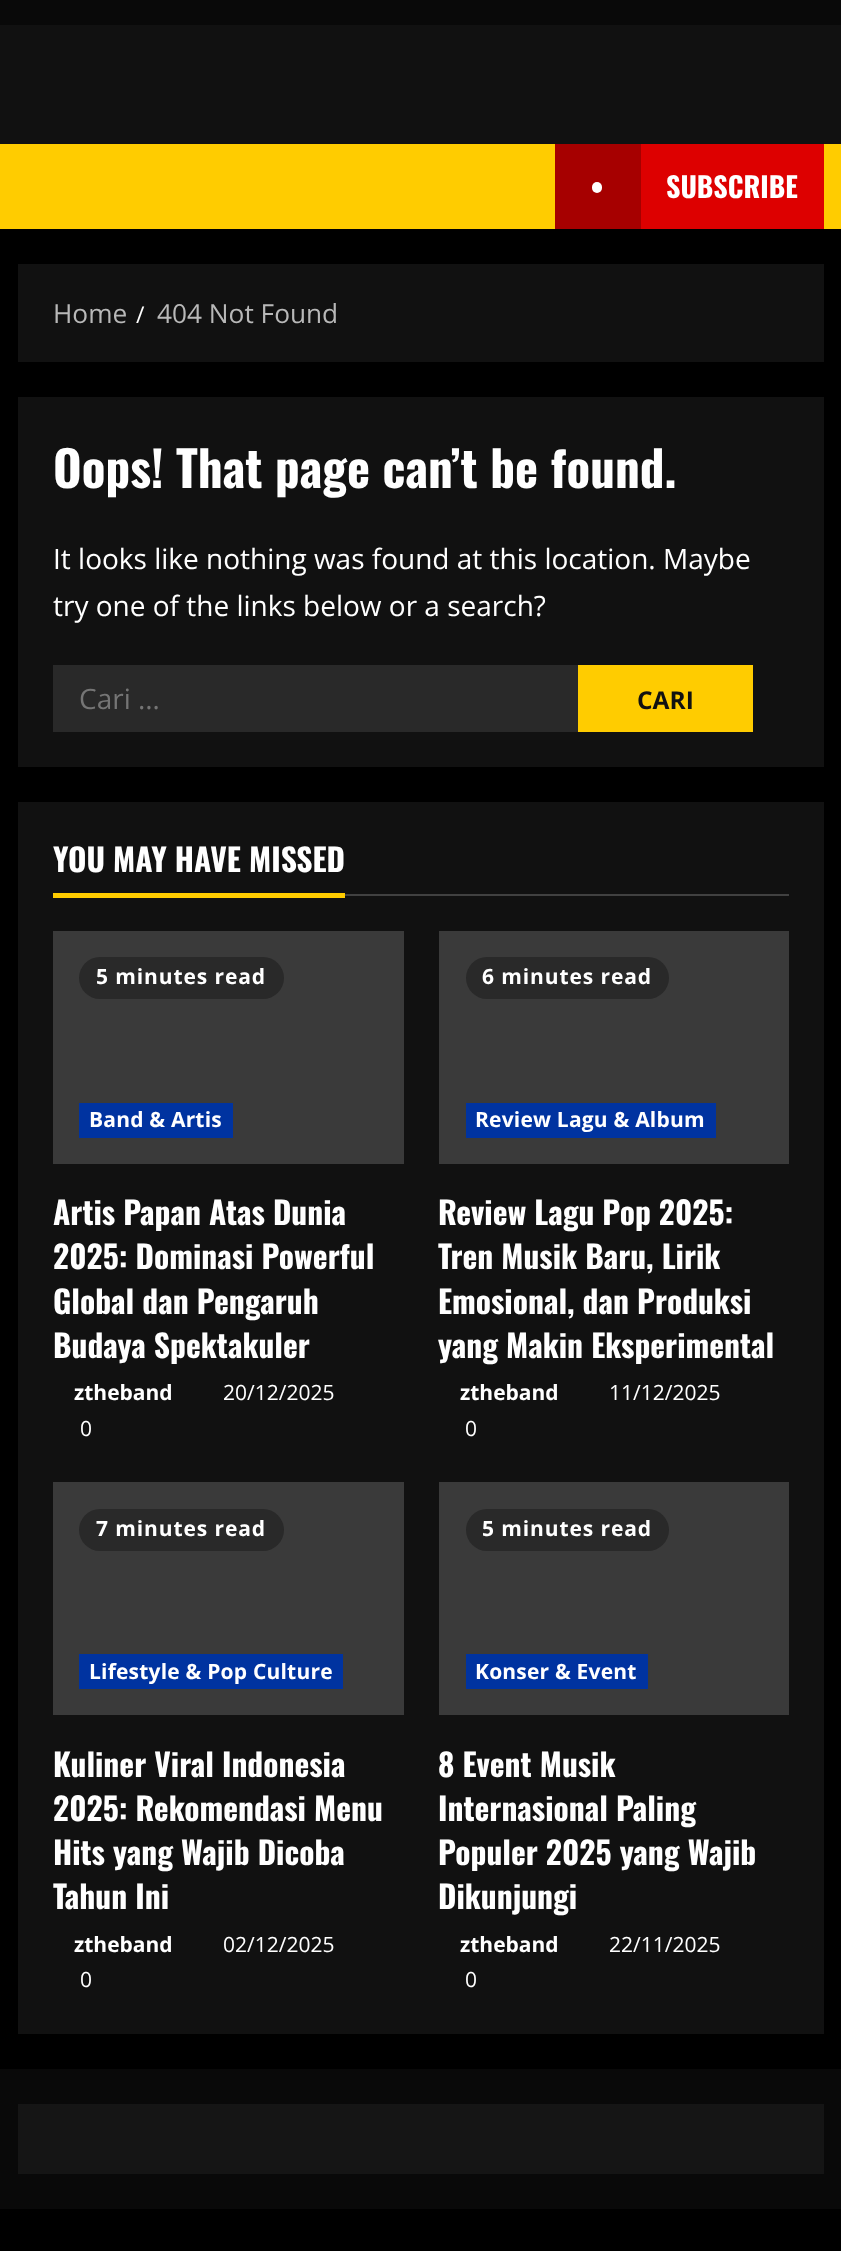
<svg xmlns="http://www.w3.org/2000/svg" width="841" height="2251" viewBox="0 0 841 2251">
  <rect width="100%" height="100%" fill="#000000"/>
  <rect x="0" y="0" width="841" height="25" fill="#090909"/>
  <rect x="0" y="25" width="841" height="119" fill="#111111"/>
  <rect x="0" y="144" width="841" height="85" fill="#ffcc00"/>
  <rect x="641" y="144" width="183" height="85" fill="#dd0000"/>
  <rect x="555" y="144" width="86" height="85" fill="#a60000"/>
  <rect x="592" y="182" width="10" height="11" rx="5" fill="#ffffff"/>
  <text x="666" y="198" font-family="Oswald" font-size="28" font-weight="bold" fill="#ffffff">SUBSCRIBE</text>
  <rect x="18" y="264" width="806" height="98" fill="#111111"/>
  <text x="53" y="323" font-family="Open Sans" font-size="26.25" fill="#b8b8b8">Home</text>
  <text x="136" y="323" font-family="Open Sans" font-size="23" fill="#ffffff">/</text>
  <text x="157" y="323" font-family="Open Sans" font-size="26.25" fill="#b8b8b8">404 Not Found</text>
  <rect x="18" y="397" width="806" height="370" fill="#111111"/>
  <text x="53" y="488" font-family="Oswald" font-size="49" font-weight="bold" fill="#ffffff">Oops! That page can’t be found.</text>
  <text x="53" y="569" font-family="Open Sans" font-size="28" fill="#ffffff">It looks like nothing was found at this location. Maybe</text>
  <text x="53" y="616" font-family="Open Sans" font-size="28" fill="#ffffff">try one of the links below or a search?</text>
  <rect x="53" y="665" width="525" height="67" fill="#292929"/>
  <text x="79" y="709" font-family="Open Sans" font-size="28" fill="#757575">Cari …</text>
  <rect x="578" y="665" width="175" height="67" fill="#ffcc00"/>
  <text x="637" y="709" font-family="Open Sans" font-size="24.5" font-weight="bold" fill="#111111">CARI</text>
  <rect x="18" y="802" width="806" height="1232" fill="#111111"/>
  <rect x="345" y="894" width="444" height="2" fill="#414141"/>
  <text x="53" y="872" font-family="Oswald" font-size="31.5" font-weight="bold" fill="#ffffff">YOU MAY HAVE MISSED</text>
  <rect x="53" y="893" width="292" height="5" fill="#ffcc00"/>
  <rect x="53" y="931" width="351" height="233" fill="#3a3a3a"/>
  <rect x="79" y="957" width="205" height="42" rx="21" fill="#292929"/>
  <text x="96" y="984" font-family="Open Sans" font-size="21" font-weight="bold" letter-spacing="0.9" fill="#ffffff">5 minutes read</text>
  <rect x="79" y="1103" width="154" height="35" fill="#0033a0"/>
  <text x="89" y="1127" font-family="Open Sans" font-size="21" font-weight="bold" letter-spacing="0.2" fill="#ffffff">Band &amp; Artis</text>
  <text x="53" y="1225" font-family="Oswald" font-size="31.5" font-weight="bold" fill="#ffffff">Artis Papan Atas Dunia</text>
  <text x="53" y="1269" font-family="Oswald" font-size="31.5" font-weight="bold" fill="#ffffff">2025: Dominasi Powerful</text>
  <text x="53" y="1314" font-family="Oswald" font-size="31.5" font-weight="bold" fill="#ffffff">Global dan Pengaruh</text>
  <text x="53" y="1358" font-family="Oswald" font-size="31.5" font-weight="bold" fill="#ffffff">Budaya Spektakuler</text>
  <text x="74" y="1400" font-family="Open Sans" font-size="21" font-weight="bold" fill="#ffffff">ztheband</text>
  <text x="223" y="1400" font-family="Open Sans" font-size="21" fill="#ffffff">20/12/2025</text>
  <text x="80" y="1436" font-family="Open Sans" font-size="21" fill="#ffffff">0</text>
  <rect x="439" y="931" width="350" height="233" fill="#3a3a3a"/>
  <rect x="466" y="957" width="203" height="42" rx="21" fill="#292929"/>
  <text x="482" y="984" font-family="Open Sans" font-size="21" font-weight="bold" letter-spacing="0.9" fill="#ffffff">6 minutes read</text>
  <rect x="466" y="1103" width="250" height="35" fill="#0033a0"/>
  <text x="475" y="1127" font-family="Open Sans" font-size="21" font-weight="bold" letter-spacing="0.2" fill="#ffffff">Review Lagu &amp; Album</text>
  <text x="438" y="1225" font-family="Oswald" font-size="31.5" font-weight="bold" fill="#ffffff">Review Lagu Pop 2025:</text>
  <text x="438" y="1269" font-family="Oswald" font-size="31.5" font-weight="bold" fill="#ffffff">Tren Musik Baru, Lirik</text>
  <text x="438" y="1314" font-family="Oswald" font-size="31.5" font-weight="bold" fill="#ffffff">Emosional, dan Produksi</text>
  <text x="438" y="1358" font-family="Oswald" font-size="31.5" font-weight="bold" fill="#ffffff">yang Makin Eksperimental</text>
  <text x="460" y="1400" font-family="Open Sans" font-size="21" font-weight="bold" fill="#ffffff">ztheband</text>
  <text x="609" y="1400" font-family="Open Sans" font-size="21" fill="#ffffff">11/12/2025</text>
  <text x="465" y="1436" font-family="Open Sans" font-size="21" fill="#ffffff">0</text>
  <rect x="53" y="1482" width="351" height="233" fill="#3a3a3a"/>
  <rect x="79" y="1509" width="205" height="42" rx="21" fill="#292929"/>
  <text x="96" y="1536" font-family="Open Sans" font-size="21" font-weight="bold" letter-spacing="0.9" fill="#ffffff">7 minutes read</text>
  <rect x="79" y="1654" width="264" height="35" fill="#0033a0"/>
  <text x="89" y="1679" font-family="Open Sans" font-size="21" font-weight="bold" letter-spacing="0.2" fill="#ffffff">Lifestyle &amp; Pop Culture</text>
  <text x="53" y="1777" font-family="Oswald" font-size="31.5" font-weight="bold" fill="#ffffff">Kuliner Viral Indonesia</text>
  <text x="53" y="1821" font-family="Oswald" font-size="31.5" font-weight="bold" fill="#ffffff">2025: Rekomendasi Menu</text>
  <text x="53" y="1865" font-family="Oswald" font-size="31.5" font-weight="bold" fill="#ffffff">Hits yang Wajib Dicoba</text>
  <text x="53" y="1909" font-family="Oswald" font-size="31.5" font-weight="bold" fill="#ffffff">Tahun Ini</text>
  <text x="74" y="1952" font-family="Open Sans" font-size="21" font-weight="bold" fill="#ffffff">ztheband</text>
  <text x="223" y="1952" font-family="Open Sans" font-size="21" fill="#ffffff">02/12/2025</text>
  <text x="80" y="1987" font-family="Open Sans" font-size="21" fill="#ffffff">0</text>
  <rect x="439" y="1482" width="350" height="233" fill="#3a3a3a"/>
  <rect x="466" y="1509" width="203" height="42" rx="21" fill="#292929"/>
  <text x="482" y="1536" font-family="Open Sans" font-size="21" font-weight="bold" letter-spacing="0.9" fill="#ffffff">5 minutes read</text>
  <rect x="466" y="1654" width="182" height="35" fill="#0033a0"/>
  <text x="475" y="1679" font-family="Open Sans" font-size="21" font-weight="bold" letter-spacing="0.2" fill="#ffffff">Konser &amp; Event</text>
  <text x="438" y="1777" font-family="Oswald" font-size="31.5" font-weight="bold" fill="#ffffff">8 Event Musik</text>
  <text x="438" y="1821" font-family="Oswald" font-size="31.5" font-weight="bold" fill="#ffffff">Internasional Paling</text>
  <text x="438" y="1865" font-family="Oswald" font-size="31.5" font-weight="bold" fill="#ffffff">Populer 2025 yang Wajib</text>
  <text x="438" y="1909" font-family="Oswald" font-size="31.5" font-weight="bold" fill="#ffffff">Dikunjungi</text>
  <text x="460" y="1952" font-family="Open Sans" font-size="21" font-weight="bold" fill="#ffffff">ztheband</text>
  <text x="609" y="1952" font-family="Open Sans" font-size="21" fill="#ffffff">22/11/2025</text>
  <text x="465" y="1987" font-family="Open Sans" font-size="21" fill="#ffffff">0</text>
  <rect x="0" y="2069" width="841" height="140" fill="#090909"/>
  <rect x="18" y="2104" width="806" height="70" fill="#151515"/>
</svg>
